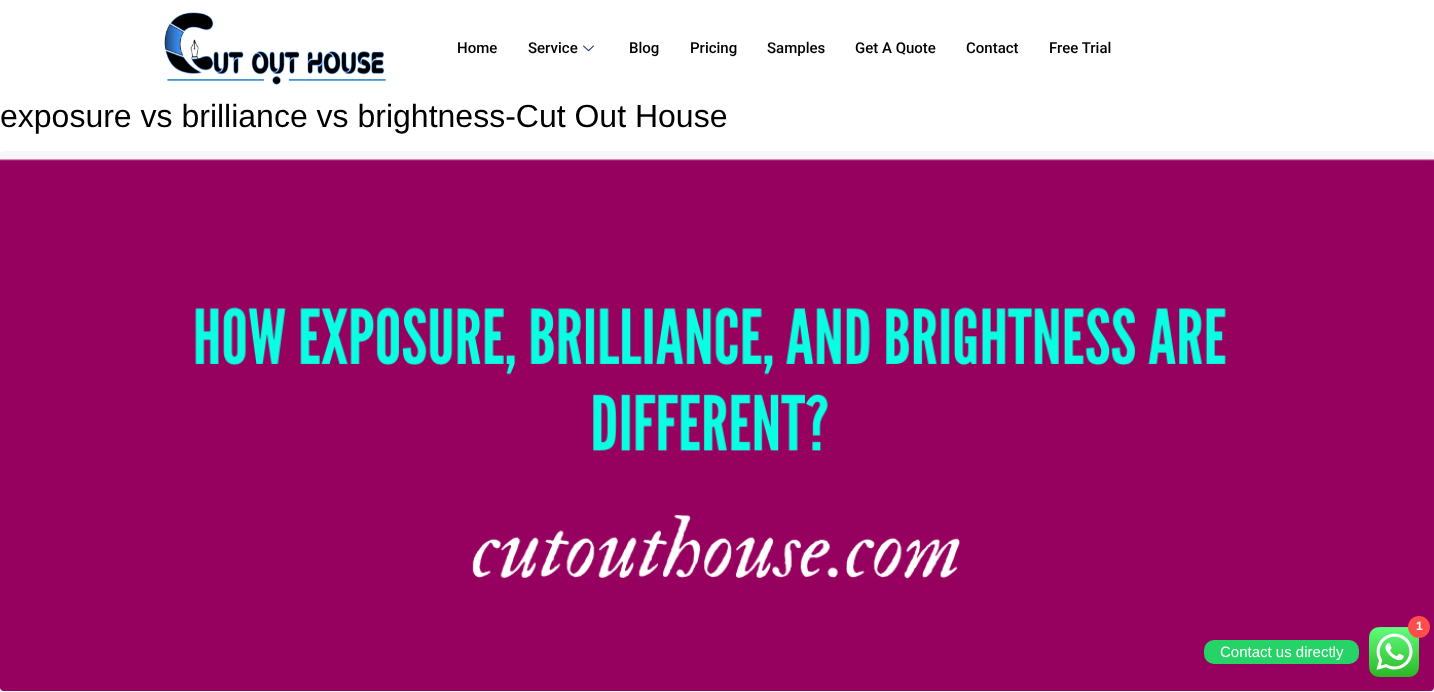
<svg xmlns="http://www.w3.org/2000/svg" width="1434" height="692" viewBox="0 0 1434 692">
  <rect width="100%" height="100%" fill="#ffffff"/>
  <image x="164" y="12" width="222" height="73" href="img1.png"/>
  <text x="457" y="53" font-family="Roboto" font-size="15" font-weight="500" fill="#000000">Home</text>
  <text x="528" y="53" font-family="Roboto" font-size="15" font-weight="500" fill="#000000">Service</text>
  <image x="583" y="45" width="11" height="7" href="img2.png"/>
  <text x="629" y="53" font-family="Roboto" font-size="15" font-weight="500" fill="#000000">Blog</text>
  <text x="690" y="53" font-family="Roboto" font-size="15" font-weight="500" fill="#000000">Pricing</text>
  <text x="767" y="53" font-family="Roboto" font-size="15" font-weight="500" fill="#000000">Samples</text>
  <text x="855" y="53" font-family="Roboto" font-size="15" font-weight="500" fill="#000000">Get A Quote</text>
  <text x="966" y="53" font-family="Roboto" font-size="15" font-weight="500" fill="#000000">Contact</text>
  <text x="1049" y="53" font-family="Roboto" font-size="15" font-weight="500" fill="#000000">Free Trial</text>
  <text x="0" y="127" font-family="Liberation Sans" font-size="32" fill="#000000">exposure vs brilliance vs brightness-Cut Out House</text>
  <image x="0" y="151" width="1434" height="540" href="img3.png"/>
  <image x="1369" y="627" width="50" height="50" href="img4.png"/>
  <circle cx="1419" cy="627" r="11" fill="#ff4c4c"/>
  <text x="1416" y="630" font-family="Liberation Sans" font-size="12" font-weight="bold" fill="#ffffff">1</text>
  <rect x="1204" y="640" width="155" height="24" rx="10" fill="#25d366"/>
  <text x="1220" y="657" font-family="Liberation Sans" font-size="15" fill="#ffffff">Contact us directly</text>
</svg>
